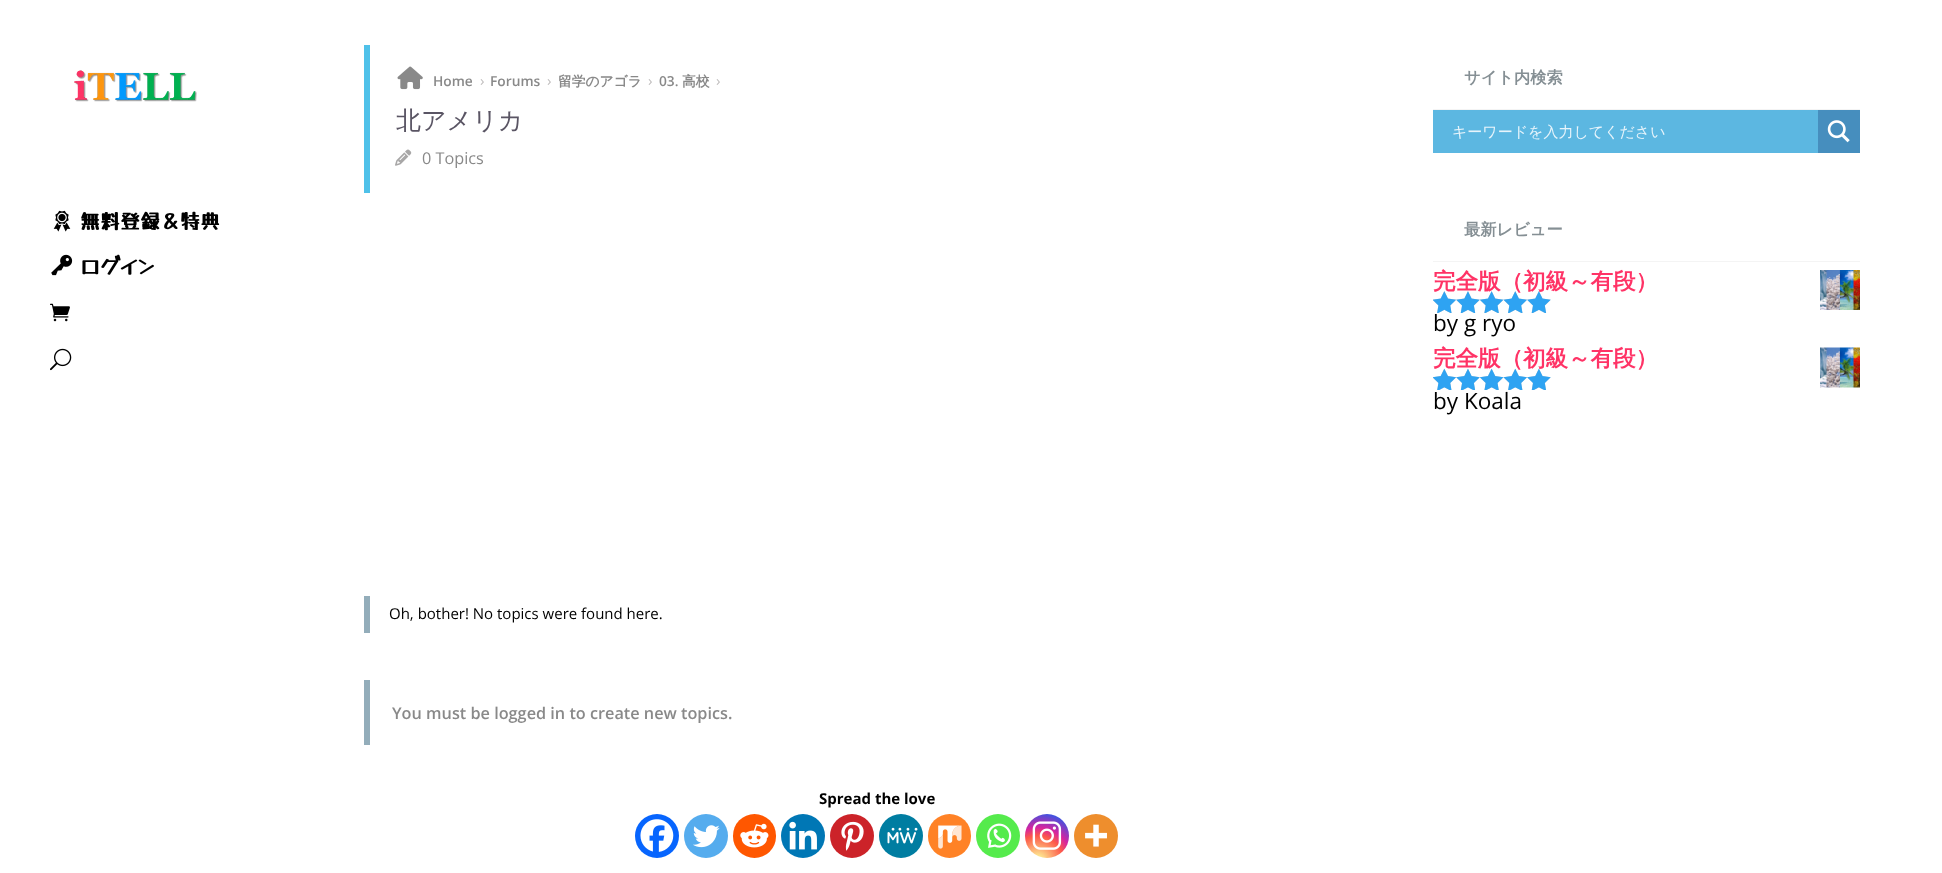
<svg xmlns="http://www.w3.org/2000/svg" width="1942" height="873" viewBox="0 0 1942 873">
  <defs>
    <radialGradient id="g1" gradientUnits="userSpaceOnUse" cx="1038" cy="861" r="56"><stop offset="0" stop-color="#fdf497"/><stop offset="0.05" stop-color="#fdf497"/><stop offset="0.45" stop-color="#fd5949"/><stop offset="0.6" stop-color="#d6249f"/><stop offset="0.9" stop-color="#285aeb"/></radialGradient>
  </defs>
  <rect width="100%" height="100%" fill="#ffffff"/>
  <image x="74" y="70" width="123" height="32" href="img1.png"/>
  <image x="53" y="210" width="18" height="22" href="img2.png"/>
  <text x="80" y="229" font-family="Yusei Magic" font-size="20" font-weight="bold" fill="#000000">無料登録＆特典</text>
  <image x="51" y="254" width="22" height="22" href="img3.png"/>
  <text x="80" y="274" font-family="Yusei Magic" font-size="20" font-weight="bold" fill="#000000">ログイン</text>
  <image x="50" y="303" width="20" height="19" href="img4.png"/>
  <image x="50" y="348" width="22" height="23" href="img5.png"/>
  <rect x="364" y="45" width="6" height="148" fill="#4fc1e9"/>
  <image x="397" y="66" width="26" height="24" href="img6.png"/>
  <text x="433" y="86" font-family="Open Sans" font-size="13.75" font-weight="600" fill="#898989">Home</text>
  <text x="480" y="86" font-family="Open Sans" font-size="15" fill="#c1bfbf">›</text>
  <text x="490" y="86" font-family="Open Sans" font-size="13.75" font-weight="600" fill="#898989">Forums</text>
  <text x="547" y="86" font-family="Open Sans" font-size="15" fill="#c1bfbf">›</text>
  <text x="558" y="86" font-family="WenQuanYi Zen Hei" font-size="13.75" font-weight="bold" fill="#898989">留学のアゴラ</text>
  <text x="648" y="86" font-family="Open Sans" font-size="15" fill="#c1bfbf">›</text>
  <text x="659" y="86" font-family="Open Sans" font-size="13.75" font-weight="600" fill="#898989">03.</text>
  <text x="682" y="86" font-family="WenQuanYi Zen Hei" font-size="13.75" font-weight="bold" fill="#898989">高校</text>
  <text x="716" y="86" font-family="Open Sans" font-size="15" fill="#c1bfbf">›</text>
  <text x="396" y="129" font-family="WenQuanYi Zen Hei" font-size="25" font-weight="500" fill="#5a5564">北アメリカ</text>
  <image x="395" y="149" width="17" height="17" href="img7.png"/>
  <text x="422" y="164" font-family="Open Sans" font-size="16.25" fill="#898989">0 Topics</text>
  <rect x="364" y="596" width="6" height="37" fill="#93adba"/>
  <text x="389" y="619" font-family="Open Sans" font-size="15" fill="#000000">Oh, bother! No topics were found here.</text>
  <rect x="364" y="680" width="6" height="65" fill="#93adba"/>
  <text x="392" y="719" font-family="Open Sans" font-size="16.25" font-weight="600" fill="#898989">You must be logged in to create new topics.</text>
  <text x="819" y="804" font-family="Open Sans" font-size="15" font-weight="bold" fill="#000000">Spread the love</text>
  <circle cx="657" cy="836" r="22" fill="#0765fe"/>
  <image x="640" y="819" width="34" height="33" href="img8.png"/>
  <circle cx="706" cy="836" r="22" fill="#55acee"/>
  <image x="693" y="825" width="27" height="23" href="img9.png"/>
  <rect x="733" y="814" width="43" height="44" rx="21.5" fill="#ff5700"/>
  <image x="740" y="823" width="29" height="25" href="img10.png"/>
  <circle cx="803" cy="836" r="22" fill="#0077b5"/>
  <image x="789" y="821" width="28" height="29" href="img11.png"/>
  <circle cx="852" cy="836" r="22" fill="#cc2329"/>
  <image x="841" y="821" width="23" height="30" href="img12.png"/>
  <circle cx="901" cy="836" r="22" fill="#007da1"/>
  <image x="887" y="827" width="31" height="17" href="img13.png"/>
  <rect x="928" y="814" width="43" height="44" rx="21.5" fill="#ff8226"/>
  <image x="938" y="825" width="24" height="24" href="img14.png"/>
  <circle cx="998" cy="836" r="22" fill="#55eb4c"/>
  <image x="987" y="823" width="25" height="25" href="img15.png"/>
  <circle cx="1047" cy="836" r="22" fill="url(#g1)"/>
  <image x="1032" y="821" width="30" height="29" href="img16.png"/>
  <circle cx="1096" cy="836" r="22" fill="#ee8e2d"/>
  <image x="1085" y="824" width="22" height="23" href="img17.png"/>
  <rect x="1433" y="109" width="427" height="1" fill="#f4f4f4"/>
  <text x="1464" y="83" font-family="WenQuanYi Zen Hei" font-size="16.25" font-weight="bold" fill="#858f94">サイト内検索</text>
  <rect x="1433" y="110" width="385" height="43" fill="#5cb7e1"/>
  <text x="1452" y="137" font-family="WenQuanYi Zen Hei" font-size="15" font-weight="500" fill="#e7f4fb">キーワードを入力してください</text>
  <rect x="1818" y="110" width="42" height="43" fill="#468ebe"/>
  <image x="1827" y="120" width="23" height="23" href="img18.png"/>
  <rect x="1433" y="261" width="427" height="1" fill="#f4f4f4"/>
  <text x="1464" y="235" font-family="WenQuanYi Zen Hei" font-size="16.25" font-weight="bold" fill="#858f94">最新レビュー</text>
  <text x="1433" y="289" font-family="WenQuanYi Zen Hei" font-size="22.5" font-weight="bold" fill="#ff3366">完全版（初級～有段）</text>
  <image x="1820" y="270" width="40" height="40" href="img19.png"/>
  <image x="1433" y="291" width="118" height="22" href="img20.png"/>
  <image x="1433" y="291" width="118" height="22" href="img21.png"/>
  <text x="1433" y="331" font-family="Open Sans" font-size="22.5" fill="#000000">by g ryo</text>
  <text x="1433" y="366" font-family="WenQuanYi Zen Hei" font-size="22.5" font-weight="bold" fill="#ff3366">完全版（初級～有段）</text>
  <image x="1820" y="347" width="40" height="41" href="img22.png"/>
  <image x="1433" y="369" width="118" height="21" href="img24.png"/>
  <image x="1433" y="368" width="118" height="22" href="img23.png"/>
  <text x="1433" y="409" font-family="Open Sans" font-size="22.5" fill="#000000">by Koala</text>
</svg>
